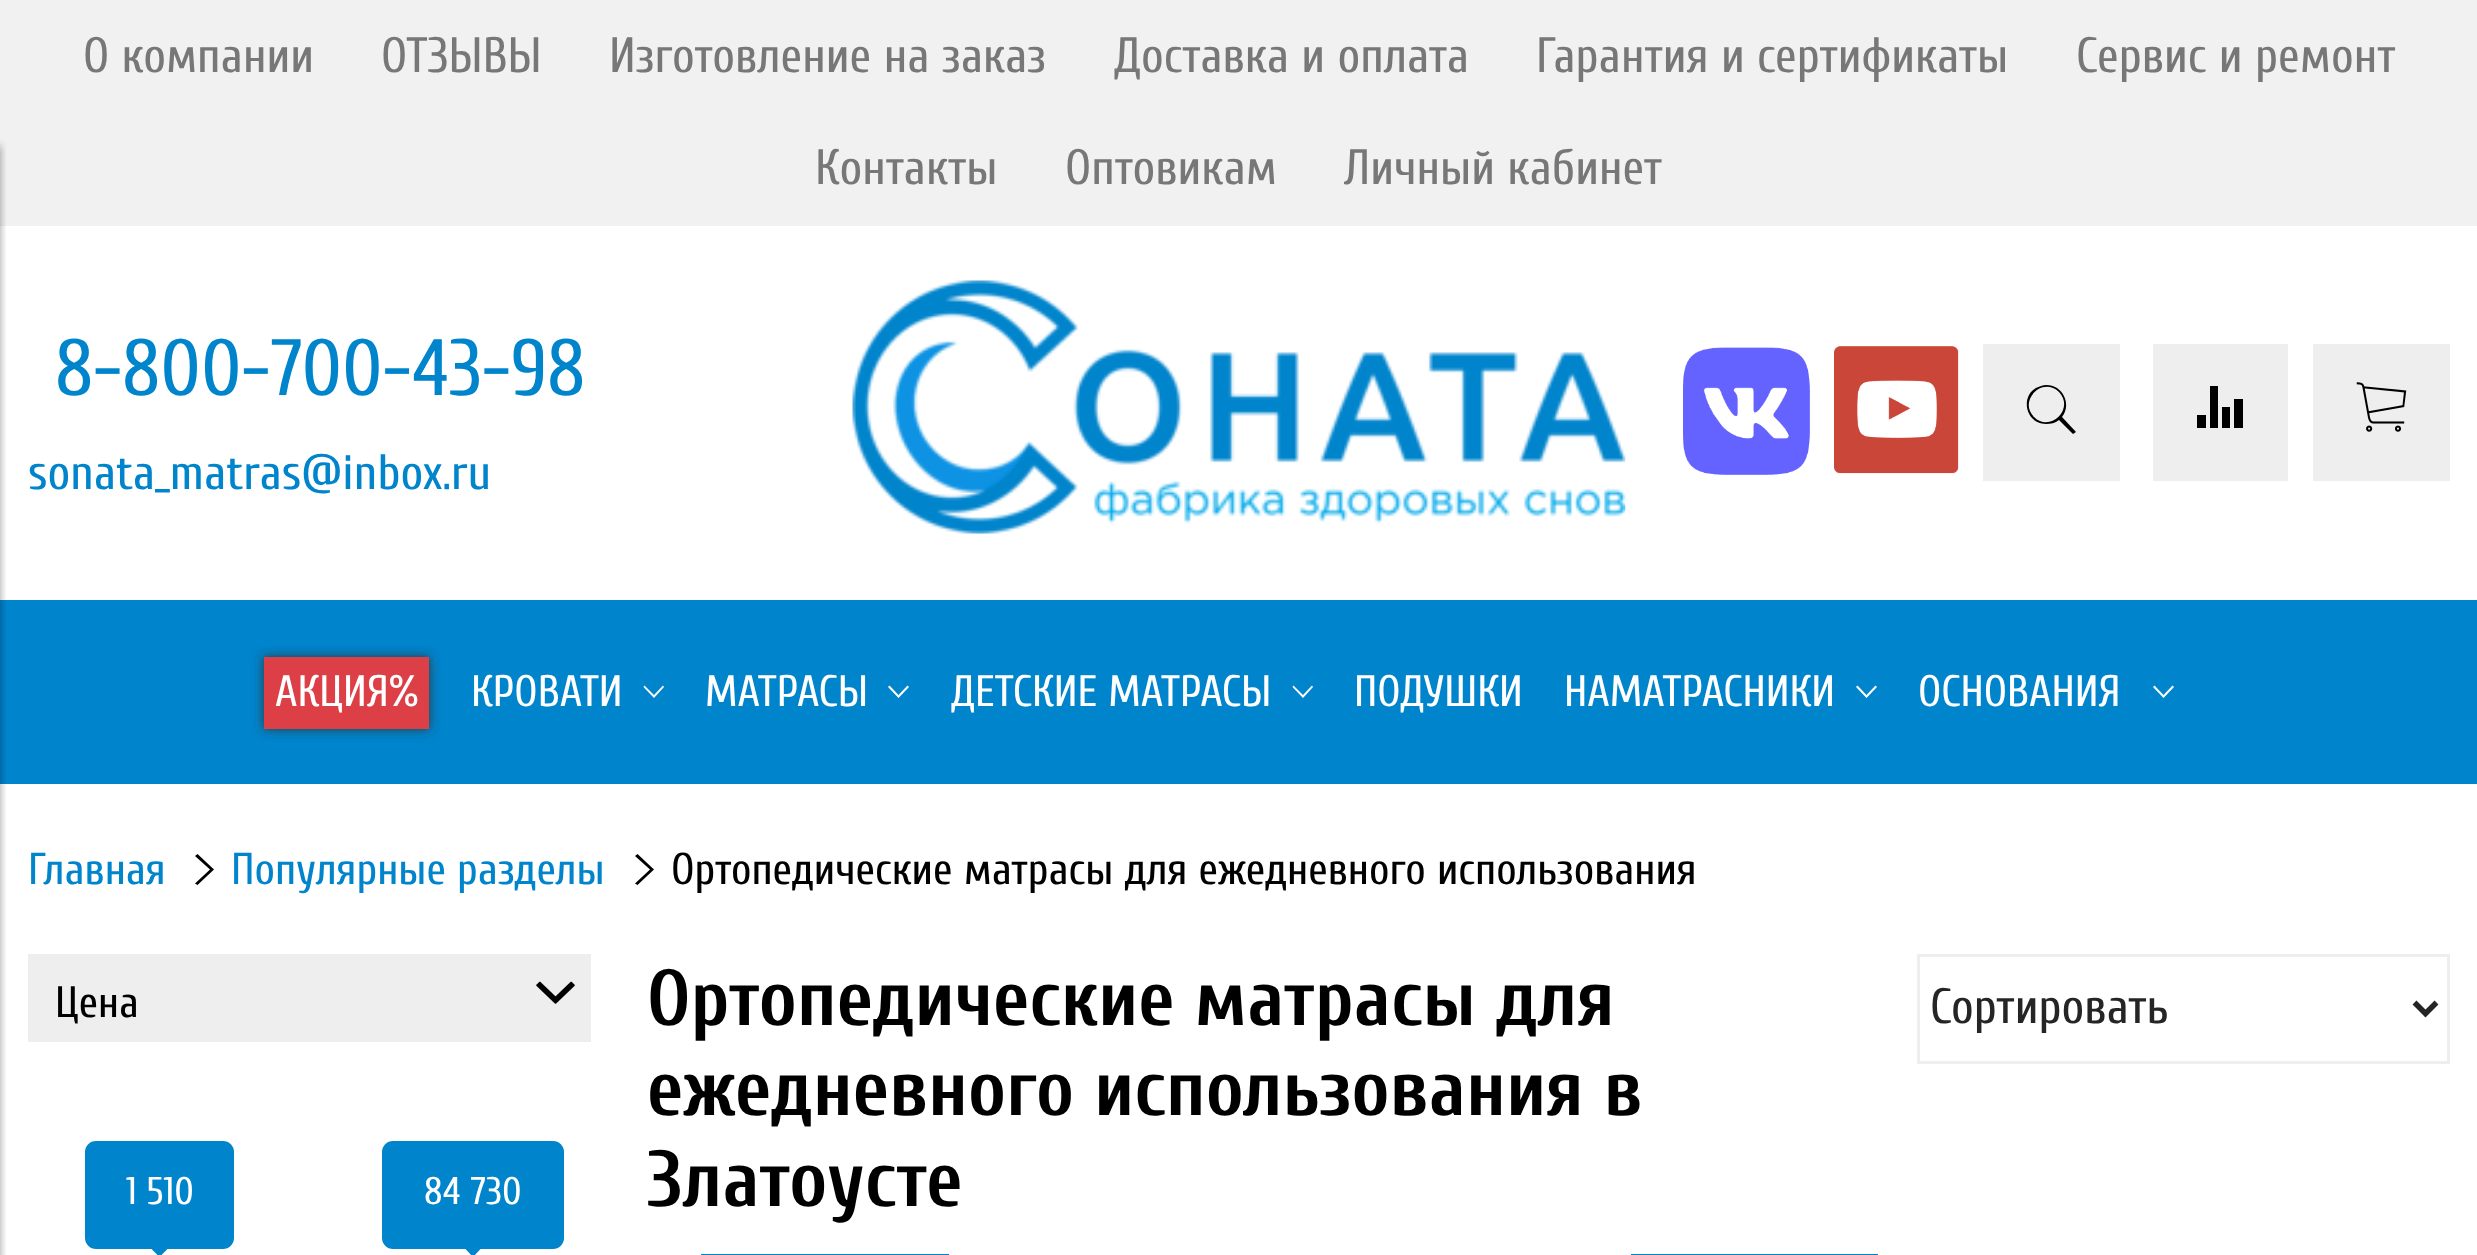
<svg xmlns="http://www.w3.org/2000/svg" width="2477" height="1255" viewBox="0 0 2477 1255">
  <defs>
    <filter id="blur1" x="-50%" y="-200%" width="200%" height="500%"><feGaussianBlur stdDeviation="4"/></filter>
    <filter id="blur2" x="-50%" y="-200%" width="200%" height="500%"><feGaussianBlur stdDeviation="5.5"/></filter>
  </defs>
  <rect width="100%" height="100%" fill="#ffffff"/>
  <rect x="0" y="0" width="2477" height="226" fill="#f1f1f1"/>
  <rect x="0" y="600" width="2477" height="184" fill="#0084cc"/>
  <rect x="-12" y="146" width="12" height="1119" fill="#000000" fill-opacity="0.4" filter="url(#blur1)"/>
  <text x="83" y="72" font-family="Cuprum" font-size="49.5" fill="#777777">О компании</text>
  <text x="381" y="72" font-family="Cuprum" font-size="49.5" fill="#777777">ОТЗЫВЫ</text>
  <text x="609" y="72" font-family="Cuprum" font-size="49.5" fill="#777777">Изготовление на заказ</text>
  <text x="1114" y="72" font-family="Cuprum" font-size="49.5" fill="#777777">Доставка и оплата</text>
  <text x="1536" y="72" font-family="Cuprum" font-size="49.5" fill="#777777">Гарантия и сертификаты</text>
  <text x="2076" y="72" font-family="Cuprum" font-size="49.5" fill="#777777">Сервис и ремонт</text>
  <text x="815" y="184" font-family="Cuprum" font-size="49.5" fill="#777777">Контакты</text>
  <text x="1065" y="184" font-family="Cuprum" font-size="49.5" fill="#777777">Оптовикам</text>
  <text x="1344" y="184" font-family="Cuprum" font-size="49.5" fill="#777777">Личный кабинет</text>
  <text x="55" y="395" font-family="Cuprum" font-size="79.75" fill="#0084cc">8-800-700-43-98</text>
  <text x="28" y="489" font-family="Cuprum" font-size="49.5" fill="#0084cc">sonata_matras@inbox.ru</text>
  <image x="852" y="280" width="774" height="254" href="img1.png"/>
  <image x="1683" y="347" width="127" height="128" href="img2.png"/>
  <image x="1834" y="346" width="125" height="128" href="img3.png"/>
  <rect x="1983" y="344" width="137" height="137" fill="#eeeeee"/>
  <path d="M2076 432L2073 434L2059 420C2055 423 2051 424 2046 424C2024 424 2019 392 2041 386C2046 384 2052 385 2057 388C2067 395 2069 408 2062 417ZM2034 417C2050 433 2075 409 2059 392C2042 376 2018 401 2034 417Z" fill="#000000"/>
  <rect x="2153" y="344" width="135" height="137" fill="#eeeeee"/>
  <path d="M2210 428V386H2218V428ZM2197 428V415H2206V428ZM2222 428V407H2230V428ZM2234 428V399H2243V428Z" fill="#000000"/>
  <rect x="2313" y="344" width="137" height="137" fill="#eeeeee"/>
  <image x="2356" y="382" width="51" height="50" href="img4.png"/>
  <rect x="264" y="657" width="165" height="72" fill="#333333" filter="url(#blur2)"/>
  <rect x="264" y="657" width="165" height="72" fill="#dc3f46"/>
  <text x="275" y="706" font-family="Cuprum" font-size="44" fill="#ffffff">АКЦИЯ%</text>
  <text x="471" y="706" font-family="Cuprum" font-size="44" fill="#ffffff">КРОВАТИ</text>
  <path d="M663 685.5L664 687L654 698L643.5 687L644.5 685.5L654 695Z" fill="#ffffff"/>
  <text x="705" y="706" font-family="Cuprum" font-size="44" fill="#ffffff">МАТРАСЫ</text>
  <path d="M907.5 685.5L909 687L898.5 698L888 687L889.5 685.5L898.5 695Z" fill="#ffffff"/>
  <text x="951" y="706" font-family="Cuprum" font-size="44" fill="#ffffff">ДЕТСКИЕ МАТРАСЫ</text>
  <path d="M1312 685.5L1313 687L1303 698L1292.5 687L1293.5 685.5L1303 695Z" fill="#ffffff"/>
  <text x="1354" y="706" font-family="Cuprum" font-size="44" fill="#ffffff">ПОДУШКИ</text>
  <text x="1564" y="706" font-family="Cuprum" font-size="44" fill="#ffffff">НАМАТРАСНИКИ</text>
  <path d="M1875.5 685.5L1877 687L1866.5 698L1856 687L1857.5 685.5L1866.5 695Z" fill="#ffffff"/>
  <text x="1918" y="706" font-family="Cuprum" font-size="44" fill="#ffffff">ОСНОВАНИЯ</text>
  <path d="M2172.5 685.5L2174 687L2163.5 698L2153 687L2154.5 685.5L2163.5 695Z" fill="#ffffff"/>
  <text x="28" y="884" font-family="Cuprum" font-size="44.55" fill="#0084cc">Главная</text>
  <path d="M195 856L197.5 854L214 869.5L197.5 885L195 883.5L210 869.5Z" fill="#000000"/>
  <text x="231" y="884" font-family="Cuprum" font-size="44.55" fill="#0084cc">Популярные разделы</text>
  <path d="M635 856L637.5 854L654 869.5L637.5 885L635 883.5L650 869.5Z" fill="#000000"/>
  <text x="671" y="884" font-family="Cuprum" font-size="44.55" fill="#000000">Ортопедические матрасы для ежедневного использования</text>
  <rect x="28" y="954" width="563" height="88" fill="#eeeeee"/>
  <text x="55" y="1017" font-family="Cuprum" font-size="44" fill="#000000">Цена</text>
  <image x="536" y="981" width="39" height="23" href="img5.png"/>
  <rect x="85" y="1141" width="149" height="108" rx="11" fill="#0084cc"/>
  <text x="126" y="1204" font-family="Cuprum" font-size="38.5" fill="#ffffff">1 510</text>
  <path d="M151 1248.5H168L159.5 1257Z" fill="#0084cc"/>
  <rect x="382" y="1141" width="182" height="108" rx="11" fill="#0084cc"/>
  <text x="424" y="1204" font-family="Cuprum" font-size="38.5" fill="#ffffff">84 730</text>
  <path d="M465 1248.5H481L473 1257Z" fill="#0084cc"/>
  <text x="647" y="1025" font-family="Cuprum" font-size="79.25" font-weight="bold" fill="#000000">Ортопедические матрасы для</text>
  <text x="647" y="1115" font-family="Cuprum" font-size="79.25" font-weight="bold" fill="#000000">ежедневного использования в</text>
  <text x="647" y="1206" font-family="Cuprum" font-size="79.25" font-weight="bold" fill="#000000">Златоусте</text>
  <rect x="1918.5" y="955.5" width="530" height="107" fill="none" stroke="#eeeeee" stroke-width="3"/>
  <path d="M2414.5 1002.5L2425.5 1013.5L2436.5 1002.5" fill="none" stroke="#252525" stroke-width="5.5"/>
  <text x="1930" y="1023" font-family="Cuprum" font-size="49.5" fill="#252525">Сортировать</text>
  <rect x="701" y="1254" width="248" height="1" fill="#0084cc"/>
  <rect x="1631" y="1254" width="247" height="1" fill="#0084cc"/>
</svg>
